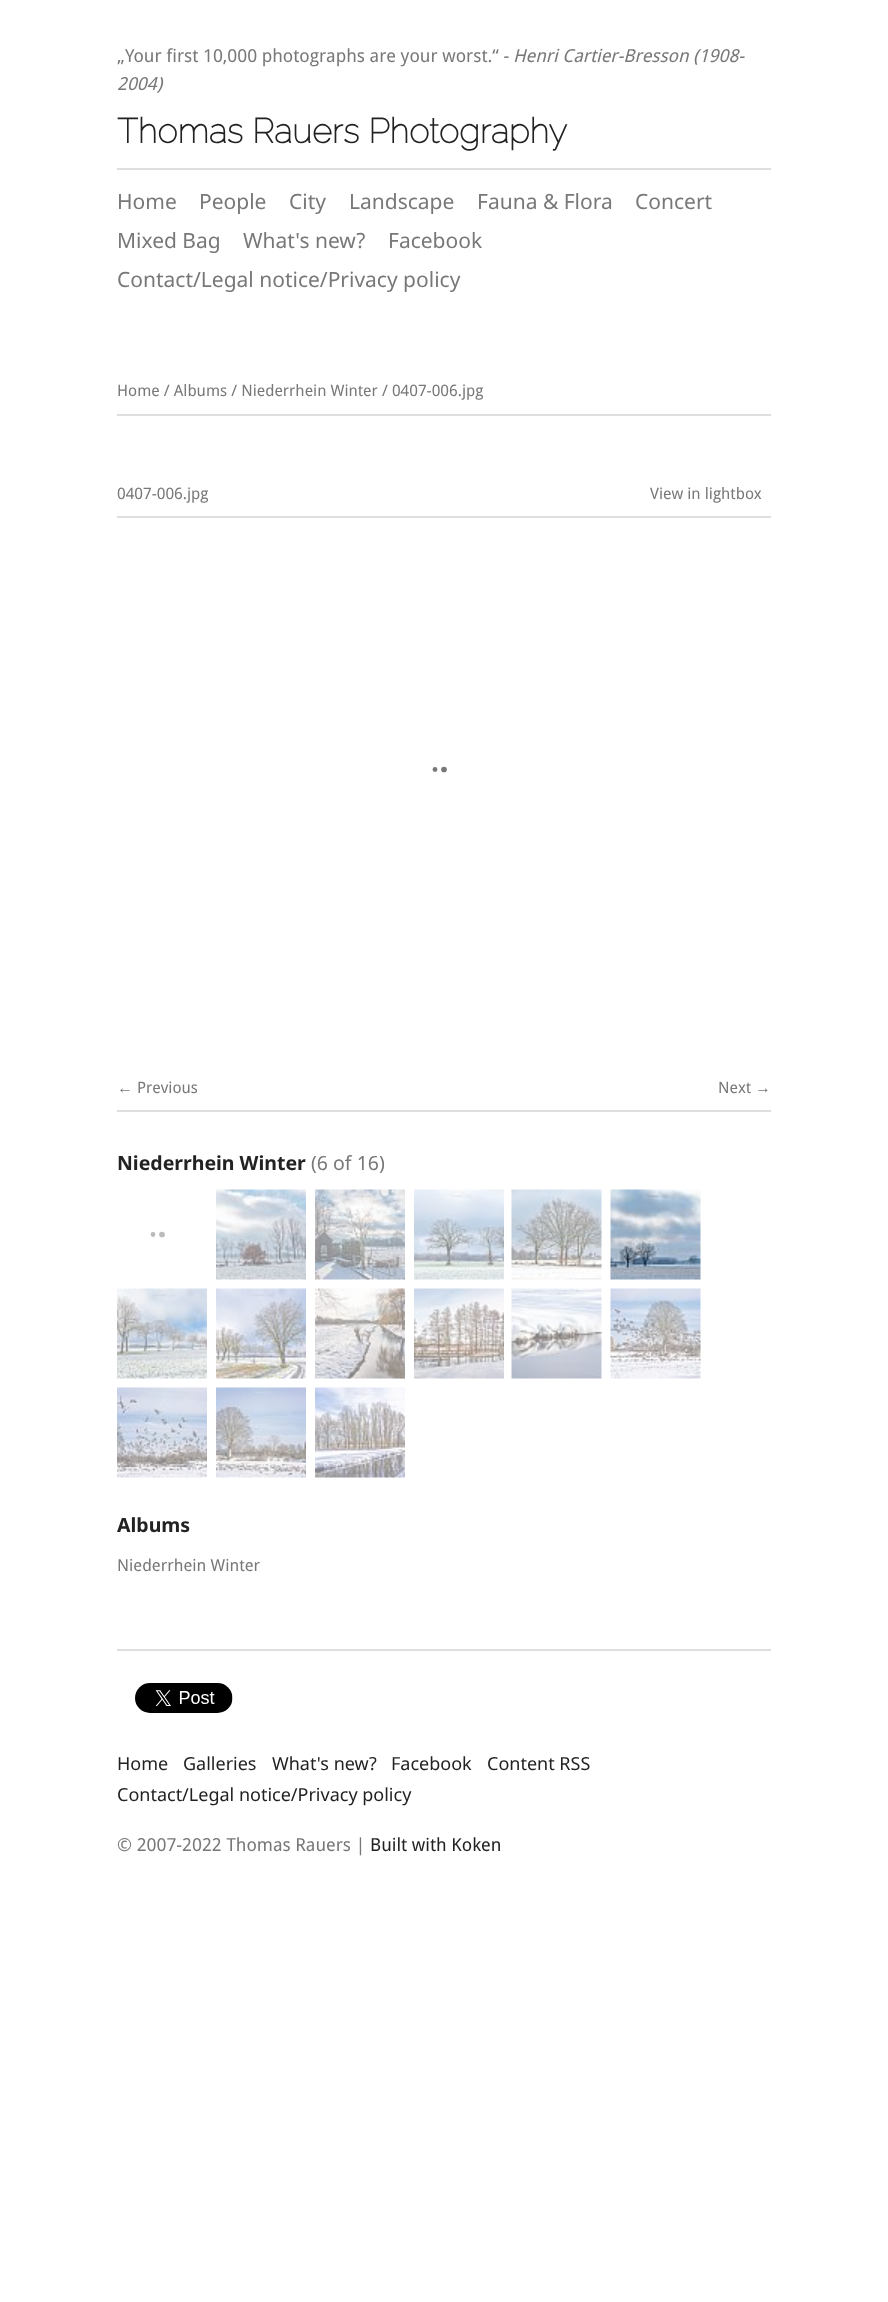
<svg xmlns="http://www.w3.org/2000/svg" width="888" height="2302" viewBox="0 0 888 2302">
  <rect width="100%" height="100%" fill="#ffffff"/>
  <text x="117" y="62" font-family="Droid Sans" font-size="18" fill="#787878">„Your first 10,000 photographs are your worst.“ -</text>
  <text x="513" y="62" font-family="Droid Sans" font-size="18" font-style="italic" fill="#787878">Henri Cartier-Bresson (1908-</text>
  <text x="117" y="90" font-family="Droid Sans" font-size="18" font-style="italic" fill="#787878">2004)</text>
  <text x="117" y="143" font-family="Raleway" font-size="34.5" font-weight="bold" fill="#222222">Thomas Rauers Photography</text>
  <rect x="117" y="168" width="654" height="2" fill="#dedede"/>
  <text x="117" y="209" font-family="Noto Sans" font-size="21" fill="#787878">Home</text>
  <text x="199" y="209" font-family="Noto Sans" font-size="21" fill="#787878">People</text>
  <text x="289" y="209" font-family="Noto Sans" font-size="21" fill="#787878">City</text>
  <text x="349" y="209" font-family="Noto Sans" font-size="21" fill="#787878">Landscape</text>
  <text x="477" y="209" font-family="Noto Sans" font-size="21" fill="#787878">Fauna &amp; Flora</text>
  <text x="635" y="209" font-family="Noto Sans" font-size="21" fill="#787878">Concert</text>
  <text x="117" y="248" font-family="Noto Sans" font-size="21" fill="#787878">Mixed Bag</text>
  <text x="243" y="248" font-family="Noto Sans" font-size="21" fill="#787878">What's new?</text>
  <text x="388" y="248" font-family="Noto Sans" font-size="21" fill="#787878">Facebook</text>
  <text x="117" y="287" font-family="Noto Sans" font-size="21" fill="#787878">Contact/Legal notice/Privacy policy</text>
  <rect x="117" y="414" width="654" height="2" fill="#dedede"/>
  <text x="117" y="396" font-family="Droid Sans" font-size="15.75" fill="#787878">Home / Albums / Niederrhein Winter / 0407-006.jpg</text>
  <rect x="117" y="516" width="654" height="2" fill="#dedede"/>
  <text x="117" y="499" font-family="Droid Sans" font-size="15.75" fill="#787878">0407-006.jpg</text>
  <text x="650" y="499" font-family="Droid Sans" font-size="15.75" fill="#787878">View in lightbox</text>
  <image x="432" y="766" width="15" height="7" href="img1.png"/>
  <rect x="117" y="1110" width="654" height="2" fill="#dedede"/>
  <text x="117" y="1093" font-family="Liberation Sans" font-size="15.75" fill="#787878">←</text>
  <text x="137" y="1093" font-family="Droid Sans" font-size="15.75" fill="#787878">Previous</text>
  <text x="718" y="1093" font-family="Droid Sans" font-size="15.75" fill="#787878">Next</text>
  <text x="755" y="1093" font-family="Liberation Sans" font-size="15.75" fill="#787878">→</text>
  <text x="117" y="1170" font-family="Noto Sans" font-size="19.5" font-weight="bold" fill="#222222">Niederrhein Winter</text>
  <text x="311" y="1170" font-family="Noto Sans" font-size="19.5" fill="#787878">(6 of 16)</text>
  <image x="150" y="1231" width="15" height="7" href="img2.png"/>
  <image x="216" y="1189" width="90" height="91" href="img3.png"/>
  <image x="315" y="1189" width="90" height="91" href="img4.png"/>
  <image x="414" y="1189" width="90" height="91" href="img5.png"/>
  <image x="511" y="1189" width="91" height="91" href="img6.png"/>
  <image x="610" y="1189" width="91" height="91" href="img7.png"/>
  <image x="117" y="1288" width="90" height="91" href="img8.png"/>
  <image x="216" y="1288" width="90" height="91" href="img9.png"/>
  <image x="315" y="1288" width="90" height="91" href="img10.png"/>
  <image x="414" y="1288" width="90" height="91" href="img11.png"/>
  <image x="511" y="1288" width="91" height="91" href="img12.png"/>
  <image x="610" y="1288" width="91" height="91" href="img13.png"/>
  <image x="117" y="1387" width="90" height="91" href="img14.png"/>
  <image x="216" y="1387" width="90" height="91" href="img15.png"/>
  <image x="315" y="1387" width="90" height="91" href="img16.png"/>
  <text x="117" y="1532" font-family="Noto Sans" font-size="19.5" font-weight="bold" fill="#222222">Albums</text>
  <text x="117" y="1571" font-family="Droid Sans" font-size="16.5" fill="#787878">Niederrhein Winter</text>
  <rect x="117" y="1649" width="654" height="2" fill="#dedede"/>
  <image x="135" y="1683" width="98" height="30" href="img17.png"/>
  <text x="117" y="1770" font-family="Noto Sans" font-size="18" fill="#222222">Home</text>
  <text x="183" y="1770" font-family="Noto Sans" font-size="18" fill="#222222">Galleries</text>
  <text x="272" y="1770" font-family="Noto Sans" font-size="18" fill="#222222">What's new?</text>
  <text x="391" y="1770" font-family="Noto Sans" font-size="18" fill="#222222">Facebook</text>
  <text x="487" y="1770" font-family="Noto Sans" font-size="18" fill="#222222">Content RSS</text>
  <text x="117" y="1801" font-family="Noto Sans" font-size="18" fill="#222222">Contact/Legal notice/Privacy policy</text>
  <text x="117" y="1851" font-family="Droid Sans" font-size="18" fill="#787878">© 2007-2022 Thomas Rauers |</text>
  <text x="370" y="1851" font-family="Droid Sans" font-size="18" fill="#222222">Built with Koken</text>
</svg>
